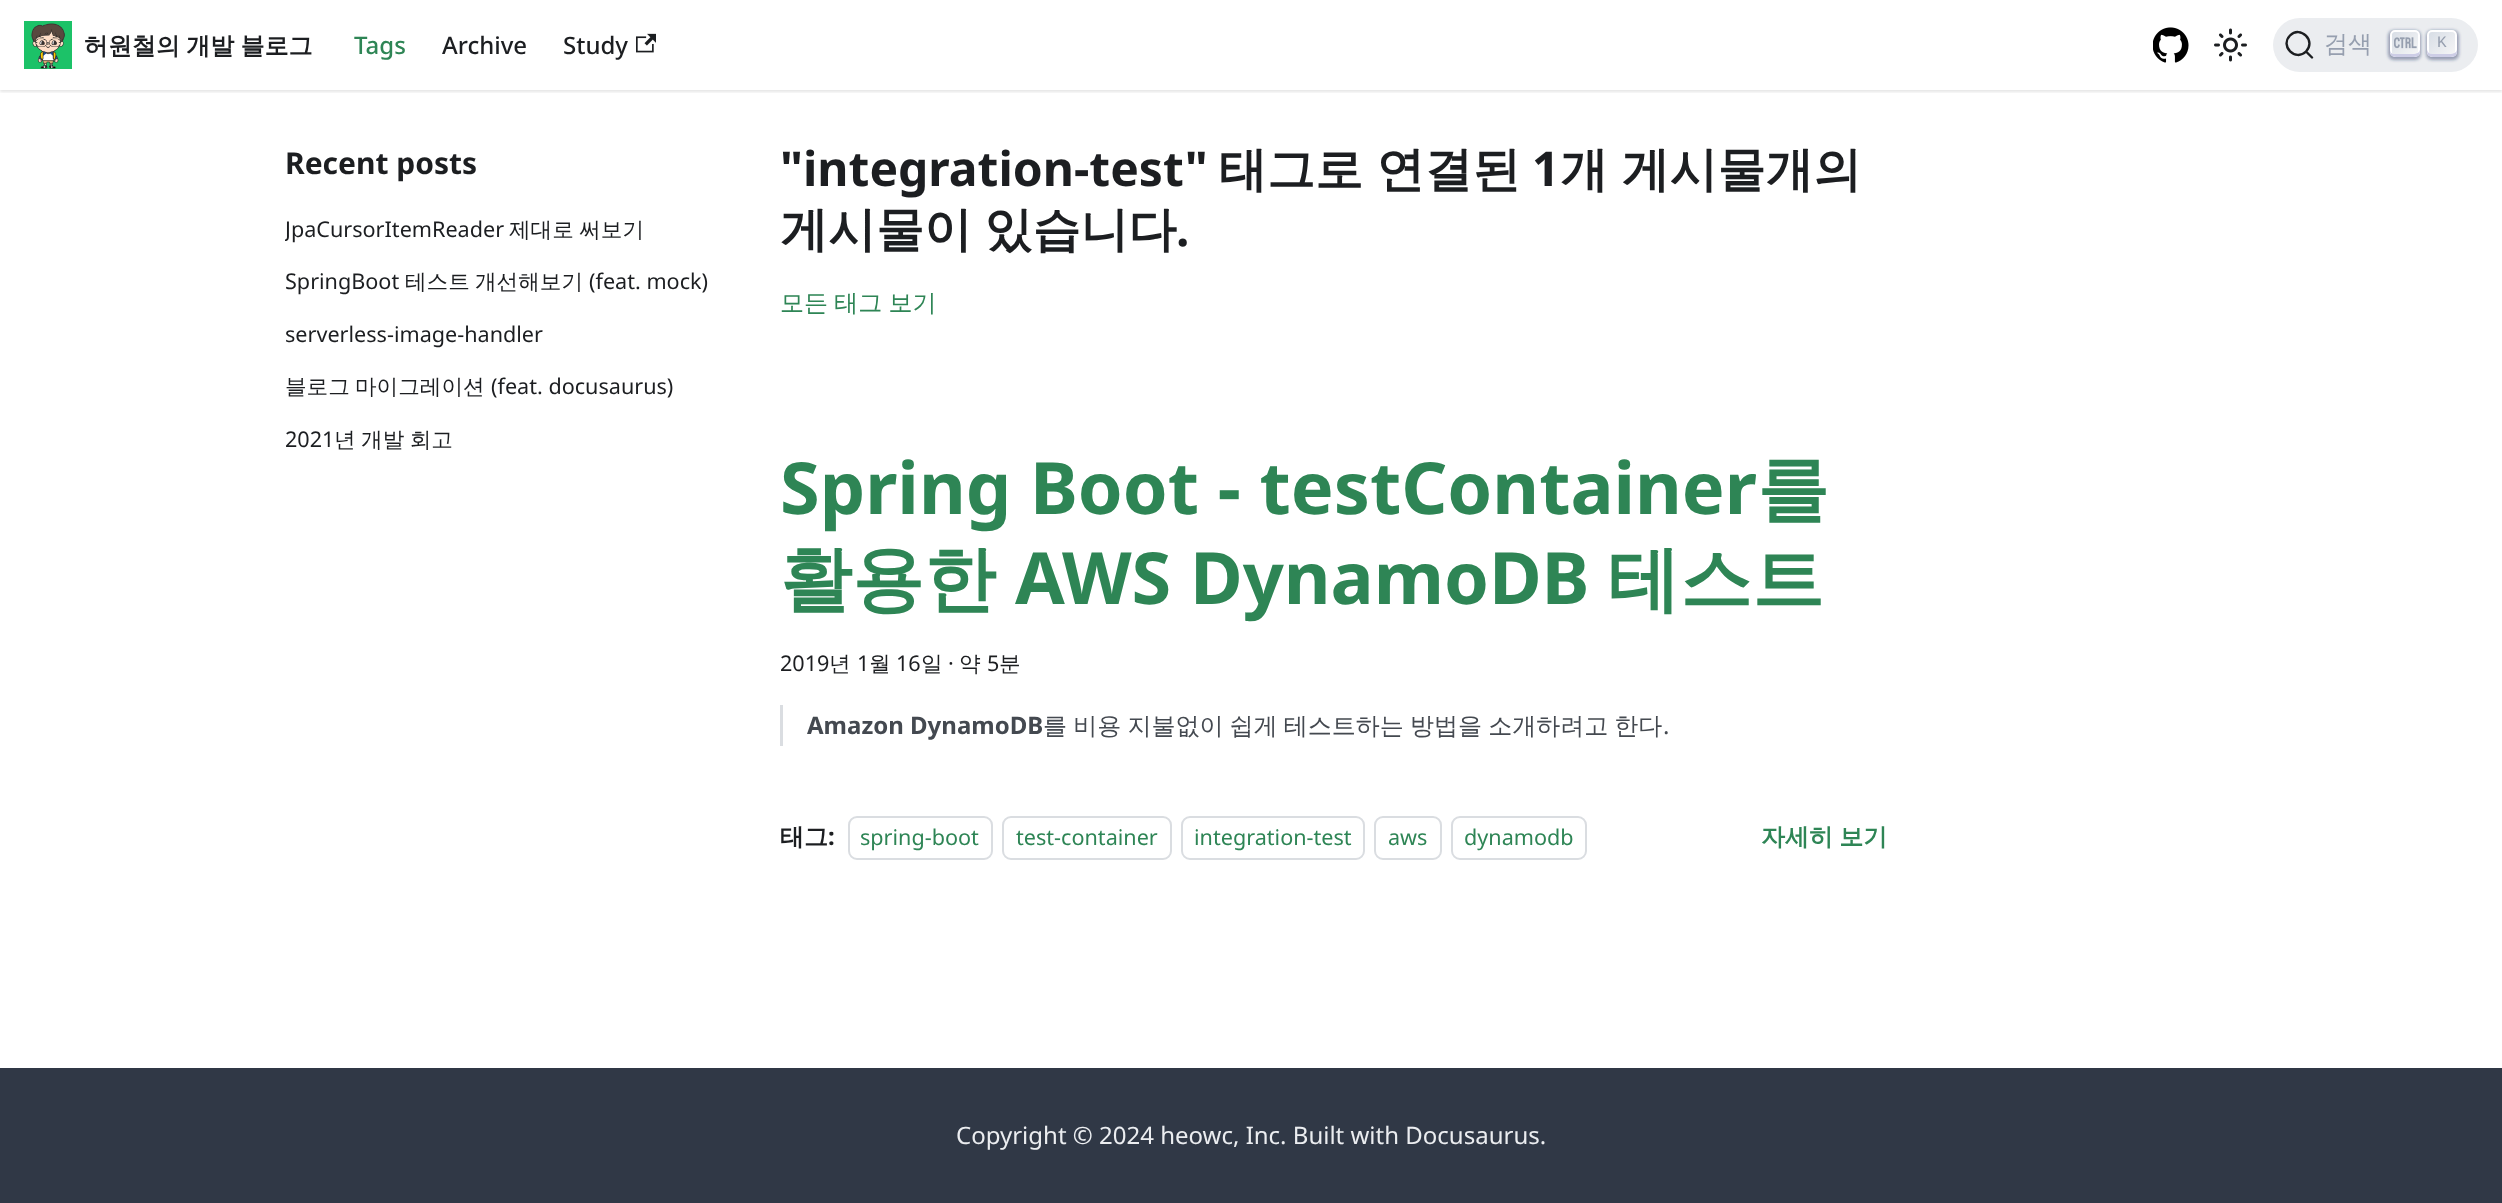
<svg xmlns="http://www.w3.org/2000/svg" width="2502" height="1203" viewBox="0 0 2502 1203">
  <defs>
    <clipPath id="clip1"><rect x="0" y="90" width="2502" height="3"/></clipPath>
    <filter id="blur1" x="-50%" y="-200%" width="200%" height="500%"><feGaussianBlur stdDeviation="1.5"/></filter>
    <linearGradient id="g1" gradientUnits="userSpaceOnUse" x1="2390" y1="29" x2="2419" y2="58"><stop offset="0" stop-color="#d5dbe4"/><stop offset="1" stop-color="#f8f8f8"/></linearGradient>
    <linearGradient id="g2" gradientUnits="userSpaceOnUse" x1="2428" y1="29" x2="2456" y2="58"><stop offset="0" stop-color="#d5dbe4"/><stop offset="1" stop-color="#f8f8f8"/></linearGradient>
    <clipPath id="clip2"><rect x="285" y="138" width="447" height="344"/></clipPath>
  </defs>
  <rect width="100%" height="100%" fill="#ffffff"/>
  <g clip-path="url(#clip1)">
    <rect x="0" y="2" width="2502" height="90" fill="#000000" fill-opacity="0.1" filter="url(#blur1)"/>
  </g>
  <image x="24" y="21" width="48" height="48" href="img1.png"/>
  <text x="84" y="54" word-spacing="-1" font-family="WenQuanYi Zen Hei" font-size="24" font-weight="bold" fill="#1c1e21">허원철의 개발 블로그</text>
  <text x="354" y="54" font-family="Noto Sans" font-size="24" font-weight="500" fill="#2e8555">Tags</text>
  <text x="442" y="54" font-family="Noto Sans" font-size="24" font-weight="500" fill="#1c1e21">Archive</text>
  <text x="563" y="54" font-family="Noto Sans" font-size="24" font-weight="500" fill="#1c1e21">Study</text>
  <image x="636" y="33" width="20" height="20" href="img2.png"/>
  <image x="2153" y="27" width="36" height="36" href="img3.png"/>
  <image x="2214" y="28" width="33" height="34" href="img4.png"/>
  <rect x="2273" y="18" width="205" height="54" rx="27" fill="#ebedf0"/>
  <path d="M2306 51.5L2312 57.5L2306 51.5C2295.5 62 2279.5 46 2290 35.5C2300.5 25 2316.5 41 2306 51.5Z" fill="none" stroke="#1c1e21" stroke-width="2.4" stroke-linecap="round" stroke-linejoin="round"/>
  <text x="2324" y="52" font-family="WenQuanYi Zen Hei" font-size="24" font-weight="500" fill="#969faf">검색</text>
  <rect x="2388" y="30" width="33" height="30" rx="6" fill="#1e235a" fill-opacity="0.4" filter="url(#blur1)"/>
  <rect x="2391" y="31" width="28" height="25" rx="4" fill="url(#g1)" stroke="#ffffff" stroke-width="2"/>
  <path d="M2420 49.5C2419.5 52.5 2417.5 54 2412 54H2394C2391.5 54 2390.5 52.5 2390 50C2390 56.5 2392.5 57 2398.5 57H2411.5C2418 57 2420 56.5 2420 49.5Z" fill="#cdcde6"/>
  <image x="2394" y="37" width="23" height="12" href="img5.png"/>
  <rect x="2426" y="30" width="33" height="30" rx="6" fill="#1e235a" fill-opacity="0.4" filter="url(#blur1)"/>
  <rect x="2428" y="31" width="28" height="25" rx="4" fill="url(#g2)" stroke="#ffffff" stroke-width="2"/>
  <path d="M2457 49.5C2456.5 52.5 2454.5 54 2449 54H2432C2429 54 2427.5 52 2427 49.5C2427 56 2428.5 57 2435.5 57H2448.5C2455 57 2457 56.5 2457 49.5Z" fill="#cdcde6"/>
  <text x="2437" y="47" font-family="Liberation Mono" font-size="16" fill="#969faf">K</text>
  <text x="285" y="174" font-family="Noto Sans" font-size="30" font-weight="bold" fill="#1c1e21">Recent posts</text>
  <g clip-path="url(#clip2)">
    <text x="285" y="237" font-family="Noto Sans" font-size="21.6" fill="#1c1e21">JpaCursorItemReader</text>
  </g>
  <text x="509" y="237" word-spacing="-1" font-family="WenQuanYi Zen Hei" font-size="21.6" font-weight="500" fill="#1c1e21">제대로 써보기</text>
  <text x="285" y="289" font-family="Noto Sans" font-size="21.6" fill="#1c1e21">SpringBoot</text>
  <text x="405" y="289" font-family="WenQuanYi Zen Hei" font-size="21.6" font-weight="500" fill="#1c1e21">테스트</text>
  <text x="475" y="289" font-family="WenQuanYi Zen Hei" font-size="21.6" font-weight="500" fill="#1c1e21">개선해보기</text>
  <text x="589" y="289" font-family="Noto Sans" font-size="21.6" fill="#1c1e21">(feat. mock)</text>
  <text x="285" y="342" font-family="Noto Sans" font-size="21.6" fill="#1c1e21">serverless-image-handler</text>
  <text x="285" y="394" font-family="WenQuanYi Zen Hei" font-size="21.6" font-weight="500" fill="#1c1e21">블로그</text>
  <text x="355" y="394" font-family="WenQuanYi Zen Hei" font-size="21.6" font-weight="500" fill="#1c1e21">마이그레이션</text>
  <text x="491" y="394" font-family="Noto Sans" font-size="21.6" fill="#1c1e21">(feat. docusaurus)</text>
  <text x="285" y="447" font-family="Noto Sans" font-size="21.6" fill="#1c1e21">2021</text>
  <text x="334" y="447" word-spacing="-1" font-family="WenQuanYi Zen Hei" font-size="21.6" font-weight="500" fill="#1c1e21">년 개발 회고</text>
  <text x="780" y="186" font-family="Noto Sans" font-size="48" font-weight="bold" fill="#1c1e21">"integration-test"</text>
  <text x="1219" y="186" word-spacing="-1" font-family="WenQuanYi Zen Hei" font-size="48" font-weight="bold" fill="#1c1e21">태그로 연결된</text>
  <text x="1532" y="186" font-family="Noto Sans" font-size="48" font-weight="bold" fill="#1c1e21">1</text>
  <text x="1560" y="186" word-spacing="-1" font-family="WenQuanYi Zen Hei" font-size="48" font-weight="bold" fill="#1c1e21">개 게시물개의</text>
  <text x="780" y="246" word-spacing="-2" font-family="WenQuanYi Zen Hei" font-size="48" font-weight="bold" fill="#1c1e21">게시물이 있습니다</text>
  <text x="1176" y="246" font-family="Noto Sans" font-size="48" font-weight="bold" fill="#1c1e21">.</text>
  <text x="780" y="311" word-spacing="-1" font-family="WenQuanYi Zen Hei" font-size="24" font-weight="500" fill="#2e8555">모든 태그 보기</text>
  <text x="780" y="514" font-family="Noto Sans" font-size="72" font-weight="bold" fill="#2e8555">Spring Boot - testContainer</text>
  <text x="1757" y="514" font-family="WenQuanYi Zen Hei" font-size="72" font-weight="bold" fill="#2e8555">를</text>
  <text x="780" y="604" font-family="WenQuanYi Zen Hei" font-size="72" font-weight="bold" fill="#2e8555">활용한</text>
  <text x="1015" y="604" font-family="Noto Sans" font-size="72" font-weight="bold" fill="#2e8555">AWS DynamoDB</text>
  <text x="1608" y="604" font-family="WenQuanYi Zen Hei" font-size="72" font-weight="bold" fill="#2e8555">테스트</text>
  <text x="780" y="671" font-family="Noto Sans" font-size="21.6" fill="#1c1e21">2019</text>
  <text x="829" y="671" font-family="WenQuanYi Zen Hei" font-size="21.6" font-weight="500" fill="#1c1e21">년</text>
  <text x="857" y="671" font-family="Noto Sans" font-size="21.6" fill="#1c1e21">1</text>
  <text x="869" y="671" font-family="WenQuanYi Zen Hei" font-size="21.6" font-weight="500" fill="#1c1e21">월</text>
  <text x="896" y="671" font-family="Noto Sans" font-size="21.6" fill="#1c1e21">16</text>
  <text x="921" y="671" font-family="WenQuanYi Zen Hei" font-size="21.6" font-weight="500" fill="#1c1e21">일</text>
  <text x="948" y="671" font-family="Noto Sans" font-size="21.6" fill="#1c1e21">·</text>
  <text x="959" y="671" font-family="WenQuanYi Zen Hei" font-size="21.6" font-weight="500" fill="#1c1e21">약</text>
  <text x="987" y="671" font-family="Noto Sans" font-size="21.6" fill="#1c1e21">5</text>
  <text x="999" y="671" font-family="WenQuanYi Zen Hei" font-size="21.6" font-weight="500" fill="#1c1e21">분</text>
  <rect x="780" y="705" width="3" height="41" fill="#dadde1"/>
  <text x="807" y="734" font-family="Noto Sans" font-size="24" font-weight="bold" fill="#444950">Amazon DynamoDB</text>
  <text x="1043" y="734" word-spacing="-1" font-family="WenQuanYi Zen Hei" font-size="24" font-weight="500" fill="#444950">를 비용 지불없이 쉽게 테스트하는 방법을 소개하려고 한다</text>
  <text x="1663" y="734" font-family="Noto Sans" font-size="24" fill="#444950">.</text>
  <text x="780" y="845" font-family="WenQuanYi Zen Hei" font-size="24" font-weight="bold" fill="#1c1e21">태그</text>
  <text x="828" y="845" font-family="Noto Sans" font-size="24" font-weight="bold" fill="#1c1e21">:</text>
  <rect x="849" y="817" width="143" height="42" rx="8" fill="none" stroke="#dadde1" stroke-width="2"/>
  <text x="860" y="845" font-family="Noto Sans" font-size="21.6" fill="#2e8555">spring-boot</text>
  <rect x="1003" y="817" width="168" height="42" rx="8" fill="none" stroke="#dadde1" stroke-width="2"/>
  <text x="1016" y="845" font-family="Noto Sans" font-size="21.6" fill="#2e8555">test-container</text>
  <rect x="1182" y="817" width="182" height="42" rx="8" fill="none" stroke="#dadde1" stroke-width="2"/>
  <text x="1194" y="845" font-family="Noto Sans" font-size="21.6" fill="#2e8555">integration-test</text>
  <rect x="1375" y="817" width="66" height="42" rx="8" fill="none" stroke="#dadde1" stroke-width="2"/>
  <text x="1388" y="845" font-family="Noto Sans" font-size="21.6" fill="#2e8555">aws</text>
  <rect x="1452" y="817" width="134" height="42" rx="8" fill="none" stroke="#dadde1" stroke-width="2"/>
  <text x="1464" y="845" font-family="Noto Sans" font-size="21.6" fill="#2e8555">dynamodb</text>
  <text x="1761" y="845" word-spacing="-1" font-family="WenQuanYi Zen Hei" font-size="24" font-weight="bold" fill="#2e8555">자세히 보기</text>
  <rect x="0" y="1068" width="2502" height="135" fill="#303846"/>
  <text x="956" y="1144" font-family="Noto Sans" font-size="24" fill="#ebedf0">Copyright © 2024 heowc, Inc. Built with Docusaurus.</text>
</svg>
